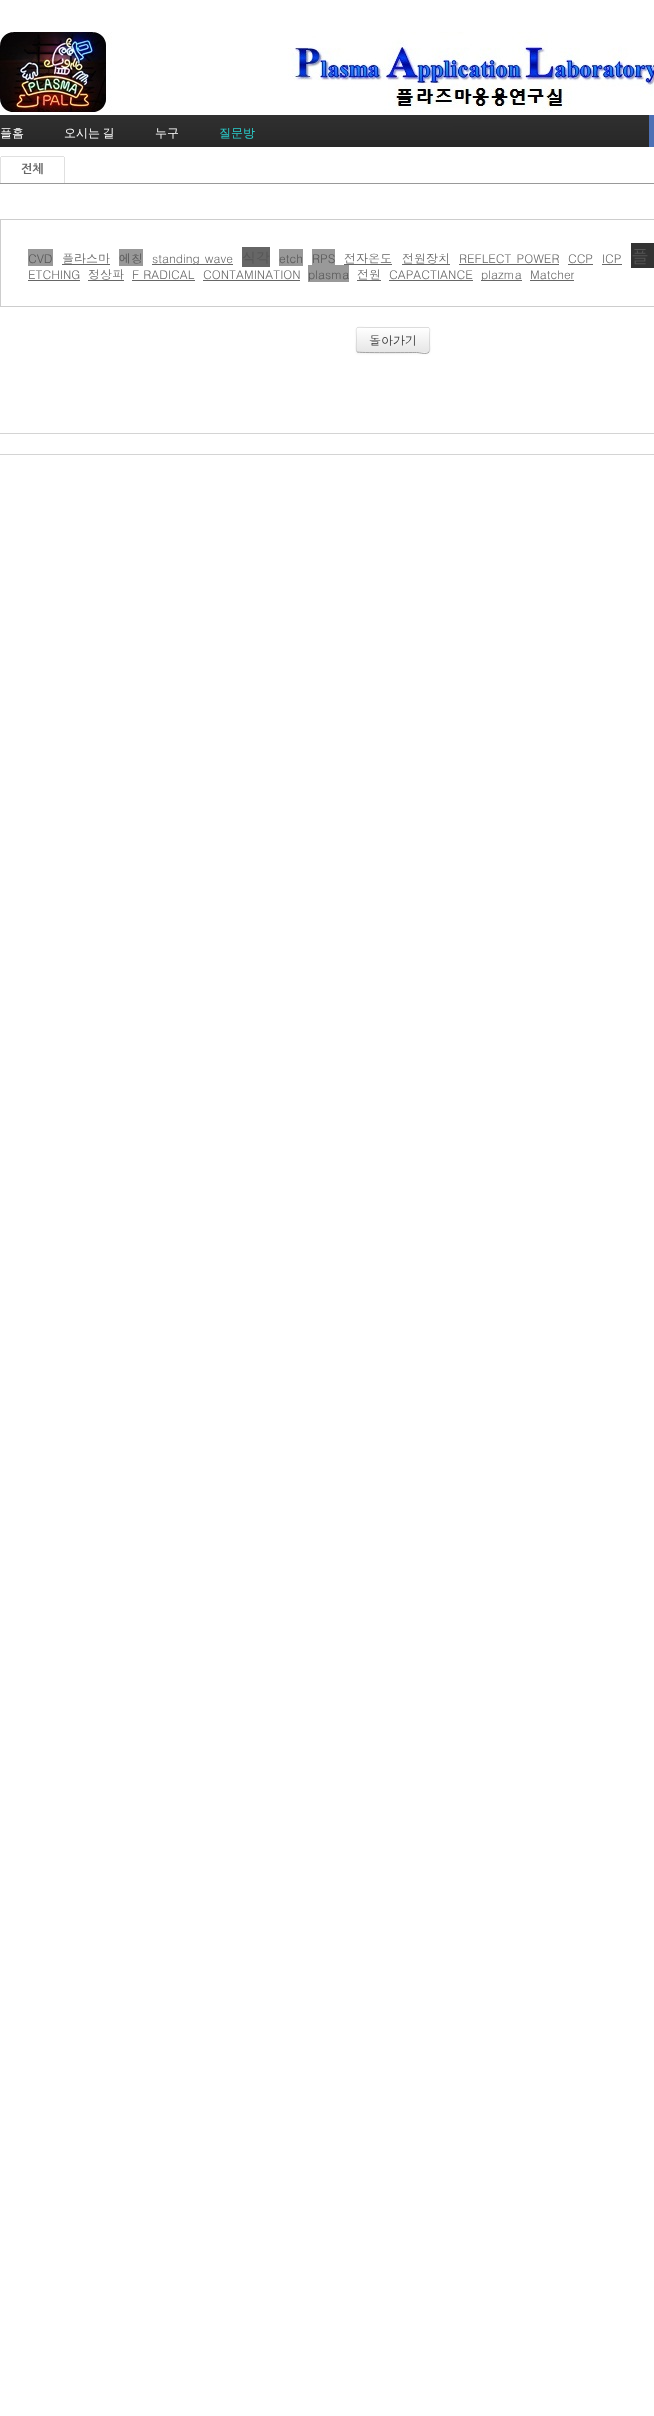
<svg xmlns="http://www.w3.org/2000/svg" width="654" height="2416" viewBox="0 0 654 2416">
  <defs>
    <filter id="blur1" x="-50%" y="-200%" width="200%" height="500%"><feGaussianBlur stdDeviation="1"/></filter>
    <clipPath id="clip1"><rect x="356" y="327" width="74" height="26" rx="2"/></clipPath>
    <linearGradient id="g1" gradientUnits="userSpaceOnUse" x1="393" y1="328" x2="393" y2="352"><stop offset="0" stop-color="#ffffff"/><stop offset="1" stop-color="#e6e6e6"/></linearGradient>
  </defs>
  <rect width="100%" height="100%" fill="#ffffff"/>
  <image x="0" y="115" width="654" height="32" href="img1.png"/>
  <image x="0" y="32" width="654" height="80" href="img2.png"/>
  <text x="0" y="137" font-family="WenQuanYi Zen Hei" font-size="12" font-weight="500" fill="#ffffff">플홈</text>
  <text x="64" y="137" word-spacing="-1" font-family="WenQuanYi Zen Hei" font-size="12" font-weight="500" fill="#ffffff">오시는 길</text>
  <text x="155" y="137" font-family="WenQuanYi Zen Hei" font-size="12" font-weight="500" fill="#ffffff">누구</text>
  <text x="219" y="137" font-family="WenQuanYi Zen Hei" font-size="12" font-weight="500" fill="#2acfcd">질문방</text>
  <rect x="0" y="183" width="654" height="1" fill="#999999"/>
  <rect x="64" y="157" width="1" height="26" fill="#e0e0e0"/>
  <rect x="0" y="157" width="1" height="26" fill="#e0e0e0"/>
  <rect x="1" y="156" width="63" height="1" fill="#e0e0e0"/>
  <text x="21" y="173" font-family="NanumGothic" font-size="12" font-weight="bold" fill="#666666">전체</text>
  <rect x="0.5" y="219.5" width="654" height="87" fill="none" stroke="#cdcdcd"/>
  <rect x="28" y="249" width="25" height="17" fill="#999999"/>
  <text x="28" y="263" font-family="Dotum" font-size="12" fill="#555555">CVD</text>
  <text x="62" y="263" font-family="Dotum" font-size="12" fill="#666666">플라스마</text>
  <rect x="62" y="264" width="48" height="1" fill="#666666"/>
  <rect x="119" y="249" width="24" height="17" fill="#999999"/>
  <text x="119" y="263" font-family="Dotum" font-size="12" fill="#555555">에칭</text>
  <rect x="152" y="264" width="81" height="1" fill="#666666"/>
  <text x="152" y="263" word-spacing="1" font-family="Dotum" font-size="12" fill="#666666">standing wave</text>
  <rect x="242" y="247" width="28" height="20" fill="#666666"/>
  <text x="242" y="263" font-family="Dotum" font-size="14" fill="#555555">식각</text>
  <rect x="279" y="249" width="24" height="17" fill="#999999"/>
  <text x="279" y="263" font-family="Dotum" font-size="12" fill="#555555">etch</text>
  <rect x="312" y="249" width="23" height="16" fill="#999999"/>
  <text x="312" y="263" font-family="Dotum" font-size="12" fill="#555555">RPS</text>
  <text x="344" y="263" font-family="Dotum" font-size="12" fill="#666666">전자온도</text>
  <rect x="344" y="264" width="48" height="1" fill="#666666"/>
  <text x="402" y="263" font-family="Dotum" font-size="12" fill="#666666">전원장치</text>
  <rect x="402" y="264" width="48" height="1" fill="#666666"/>
  <text x="459" y="263" word-spacing="1" font-family="Dotum" font-size="12" fill="#666666">REFLECT POWER</text>
  <rect x="459" y="264" width="100" height="1" fill="#666666"/>
  <text x="568" y="263" font-family="Dotum" font-size="12" fill="#666666">CCP</text>
  <rect x="568" y="264" width="25" height="1" fill="#666666"/>
  <text x="602" y="263" font-family="Dotum" font-size="12" fill="#666666">ICP</text>
  <rect x="602" y="264" width="20" height="1" fill="#666666"/>
  <rect x="631" y="243" width="23" height="25" fill="#333333"/>
  <text x="631" y="263" font-family="Dotum" font-size="18" fill="#555555">플</text>
  <text x="28" y="279" font-family="Dotum" font-size="12" fill="#666666">ETCHING</text>
  <rect x="28" y="280" width="52" height="1" fill="#666666"/>
  <text x="88" y="279" font-family="Dotum" font-size="12" fill="#666666">정상파</text>
  <rect x="88" y="280" width="36" height="1" fill="#666666"/>
  <text x="132" y="279" font-family="Dotum" font-size="12" fill="#666666">F RADICAL</text>
  <rect x="132" y="280" width="63" height="1" fill="#666666"/>
  <text x="203" y="279" font-family="Dotum" font-size="12" fill="#666666">CONTAMINATION</text>
  <rect x="203" y="280" width="97" height="1" fill="#666666"/>
  <rect x="308" y="265" width="41" height="17" fill="#999999"/>
  <text x="308" y="279" font-family="Dotum" font-size="12" fill="#555555">plasma</text>
  <text x="357" y="279" font-family="Dotum" font-size="12" fill="#666666">전원</text>
  <rect x="357" y="280" width="24" height="1" fill="#666666"/>
  <text x="389" y="279" font-family="Dotum" font-size="12" fill="#666666">CAPACTIANCE</text>
  <rect x="389" y="280" width="84" height="1" fill="#666666"/>
  <rect x="481" y="280" width="41" height="1" fill="#666666"/>
  <text x="481" y="279" font-family="Dotum" font-size="12" fill="#666666">plazma</text>
  <text x="530" y="279" font-family="Dotum" font-size="12" fill="#666666">Matcher</text>
  <rect x="530" y="280" width="44" height="1" fill="#666666"/>
  <rect x="356" y="328" width="74" height="26" rx="2" fill="#000000" fill-opacity="0.05" filter="url(#blur1)"/>
  <rect x="356" y="327" width="74" height="26" rx="2" fill="#f5f5f5"/>
  <g clip-path="url(#clip1)">
    <rect x="356" y="328" width="74" height="24" fill="url(#g1)"/>
  </g>
  <path d="M429 352C426 355 420.5 352.5 416.5 352.5C410.5 352.5 357.5 353 357 352" fill="none" stroke="#a2a2a2"/>
  <path d="M357 352C355.5 350.5 356.5 342 356.5 340C356.5 324.5 353.5 327.5 369.5 327.5H428C430.5 327.5 429.5 332 429.5 332.5V343.5C429.5 345.5 430.5 350.5 429 352" fill="none" stroke="#000000" stroke-opacity="0.1"/>
  <text x="369" y="345" font-family="Dotum" font-size="12" fill="#333333">돌아가기</text>
  <rect x="0" y="433" width="654" height="1" fill="#d4d4d4"/>
  <rect x="0" y="454" width="654" height="1" fill="#d4d4d4"/>
</svg>
